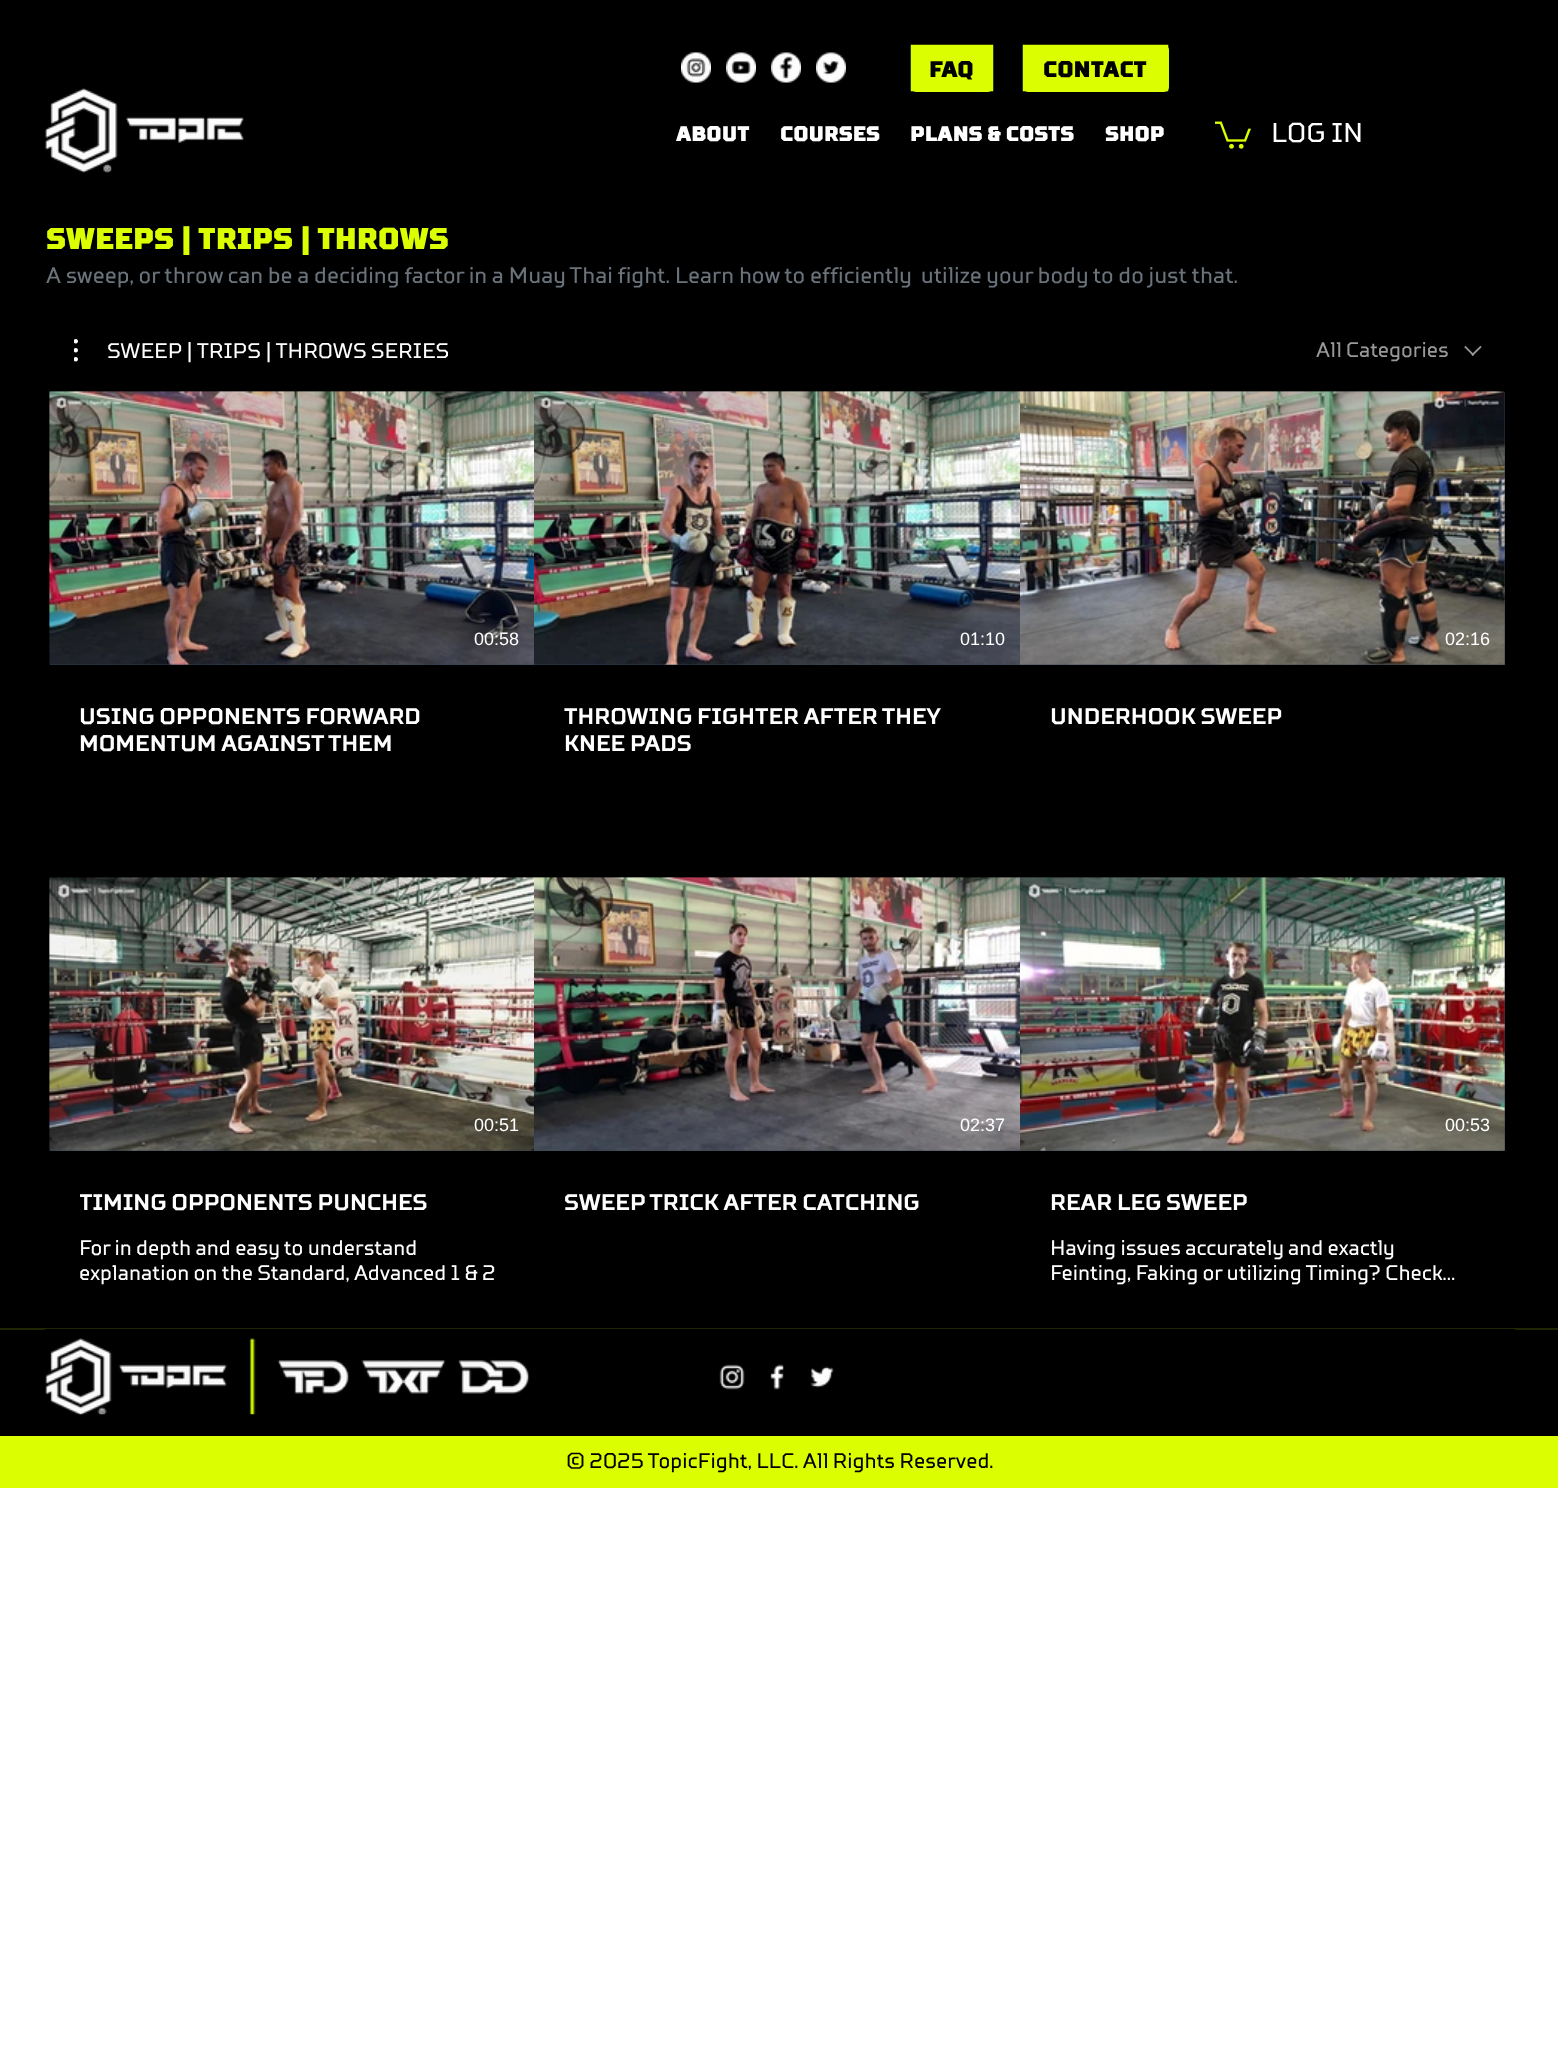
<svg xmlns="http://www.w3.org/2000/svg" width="1558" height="2050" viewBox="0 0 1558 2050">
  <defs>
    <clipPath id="clip1"><rect x="80" y="1187" width="424" height="31"/></clipPath>
  </defs>
  <rect width="100%" height="100%" fill="#ffffff"/>
  <rect x="0" y="0" width="1558" height="1328" fill="#000000"/>
  <image x="45" y="88" width="199" height="85" href="img1.png"/>
  <image x="681" y="52" width="30" height="31" href="img2.png"/>
  <image x="726" y="52" width="30" height="31" href="img3.png"/>
  <image x="771" y="52" width="30" height="31" href="img4.png"/>
  <image x="816" y="52" width="30" height="31" href="img5.png"/>
  <rect x="911" y="45" width="82" height="47" rx="5" fill="#dbff00"/>
  <path d="M919 53H985V83H919Z" fill="none" stroke="#dbff00" stroke-width="16.5"/>
  <text x="929" y="77" font-family="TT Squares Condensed" font-size="22.5" font-weight="900" fill="#000000">FAQ</text>
  <rect x="1023" y="45" width="146" height="47" rx="5" fill="#dbff00"/>
  <path d="M1031 53H1160V83H1031Z" fill="none" stroke="#dbff00" stroke-width="16.5"/>
  <text x="1043" y="77" font-family="TT Squares Condensed" font-size="22.5" font-weight="900" fill="#000000">CONTACT</text>
  <text x="676" y="141" font-family="TT Squares Condensed" font-size="21" font-weight="900" fill="#ffffff">ABOUT</text>
  <text x="780" y="141" font-family="TT Squares Condensed" font-size="21" font-weight="900" fill="#ffffff">COURSES</text>
  <text x="910" y="141" font-family="TT Squares Condensed" font-size="21" font-weight="900" fill="#ffffff">PLANS &amp; COSTS</text>
  <text x="1105" y="141" font-family="TT Squares Condensed" font-size="21" font-weight="900" fill="#ffffff">SHOP</text>
  <image x="1215" y="121" width="36" height="28" href="img6.png"/>
  <text x="1271" y="142" font-family="TT Squares Condensed" font-size="27" fill="#ffffff">LOG IN</text>
  <text x="46" y="249" font-family="TT Squares Condensed" font-size="30" font-weight="900" fill="#dbff00">SWEEPS | TRIPS | THROWS</text>
  <text x="46" y="283" font-family="TT Squares Condensed" font-size="22.5" fill="#6a737b" xml:space="preserve">A sweep, or throw can be a deciding factor in a Muay Thai fight. Learn how to efficiently  utilize your body to do just that.</text>
  <image x="74" y="339" width="4" height="23" href="img7.png"/>
  <text x="107" y="358" font-family="TT Squares Condensed" font-size="21" fill="#ffffff">SWEEP | TRIPS | THROWS SERIES</text>
  <text x="1316" y="357" font-family="TT Squares Condensed" font-size="21" fill="#999999">All Categories</text>
  <image x="1464" y="345" width="18" height="11" href="img8.png"/>
  <rect x="50" y="664" width="970" height="1" fill="#35465c"/>
  <image x="49" y="391" width="485" height="274" href="img9.png"/>
  <image x="49" y="391" width="485" height="274" href="img10.png"/>
  <text x="474" y="645" font-family="Liberation Sans" font-size="18" fill="#ffffff">00:58</text>
  <text x="79" y="724" font-family="TT Squares Condensed" font-size="22.5" font-weight="bold" fill="#ffffff">USING OPPONENTS FORWARD</text>
  <text x="79" y="751" font-family="TT Squares Condensed" font-size="22.5" font-weight="bold" fill="#ffffff">MOMENTUM AGAINST THEM</text>
  <image x="534" y="391" width="486" height="274" href="img11.png"/>
  <image x="534" y="391" width="486" height="274" href="img12.png"/>
  <text x="960" y="645" font-family="Liberation Sans" font-size="18" fill="#ffffff">01:10</text>
  <text x="564" y="724" font-family="TT Squares Condensed" font-size="22.5" font-weight="bold" fill="#ffffff">THROWING FIGHTER AFTER THEY</text>
  <text x="564" y="751" font-family="TT Squares Condensed" font-size="22.5" font-weight="bold" fill="#ffffff">KNEE PADS</text>
  <rect x="1020" y="392" width="485" height="273" fill="#35465c"/>
  <image x="1020" y="391" width="485" height="274" href="img13.png"/>
  <image x="1020" y="391" width="485" height="274" href="img14.png"/>
  <text x="1445" y="645" font-family="Liberation Sans" font-size="18" fill="#ffffff">02:16</text>
  <text x="1050" y="724" font-family="TT Squares Condensed" font-size="22.5" font-weight="bold" fill="#ffffff">UNDERHOOK SWEEP</text>
  <rect x="50" y="1150" width="970" height="1" fill="#35465c"/>
  <image x="49" y="877" width="485" height="274" href="img15.png"/>
  <image x="49" y="877" width="485" height="274" href="img16.png"/>
  <text x="474" y="1131" font-family="Liberation Sans" font-size="18" fill="#ffffff">00:51</text>
  <g clip-path="url(#clip1)">
    <text x="79" y="1210" font-family="TT Squares Condensed" font-size="22.5" font-weight="bold" fill="#ffffff">TIMING OPPONENTS PUNCHES</text>
  </g>
  <text x="79" y="1255" font-family="TT Squares Condensed" font-size="21" fill="#ffffff">For in depth and easy to understand</text>
  <text x="79" y="1280" font-family="TT Squares Condensed" font-size="21" fill="#ffffff">explanation on the Standard, Advanced 1 &amp; 2</text>
  <image x="534" y="877" width="486" height="274" href="img17.png"/>
  <image x="534" y="877" width="486" height="274" href="img18.png"/>
  <text x="960" y="1131" font-family="Liberation Sans" font-size="18" fill="#ffffff">02:37</text>
  <text x="564" y="1210" font-family="TT Squares Condensed" font-size="22.5" font-weight="bold" fill="#ffffff">SWEEP TRICK AFTER CATCHING</text>
  <rect x="1020" y="878" width="485" height="273" fill="#35465c"/>
  <image x="1020" y="877" width="485" height="274" href="img19.png"/>
  <image x="1020" y="877" width="485" height="274" href="img20.png"/>
  <text x="1445" y="1131" font-family="Liberation Sans" font-size="18" fill="#ffffff">00:53</text>
  <text x="1050" y="1210" font-family="TT Squares Condensed" font-size="22.5" font-weight="bold" fill="#ffffff">REAR LEG SWEEP</text>
  <text x="1050" y="1255" font-family="TT Squares Condensed" font-size="21" fill="#ffffff">Having issues accurately and exactly</text>
  <text x="1050" y="1280" font-family="TT Squares Condensed" font-size="21" fill="#ffffff">Feinting, Faking or utilizing Timing? Check…</text>
  <rect x="0" y="1330" width="1558" height="106" fill="#000000"/>
  <rect x="0" y="1328" width="1558" height="2" fill="#212600"/>
  <rect x="45" y="1329" width="1470" height="1" fill="#000000"/>
  <image x="45" y="1338" width="485" height="77" href="img21.png"/>
  <image x="719" y="1364" width="26" height="26" href="img22.png"/>
  <image x="770" y="1364" width="14" height="26" href="img23.png"/>
  <image x="810" y="1366" width="24" height="22" href="img24.png"/>
  <rect x="0" y="1436" width="1558" height="52" fill="#dbff00"/>
  <text x="566" y="1468" font-family="TT Squares Condensed" font-size="21" fill="#000000">© 2025 TopicFight, LLC. All Rights Reserved.</text>
</svg>
